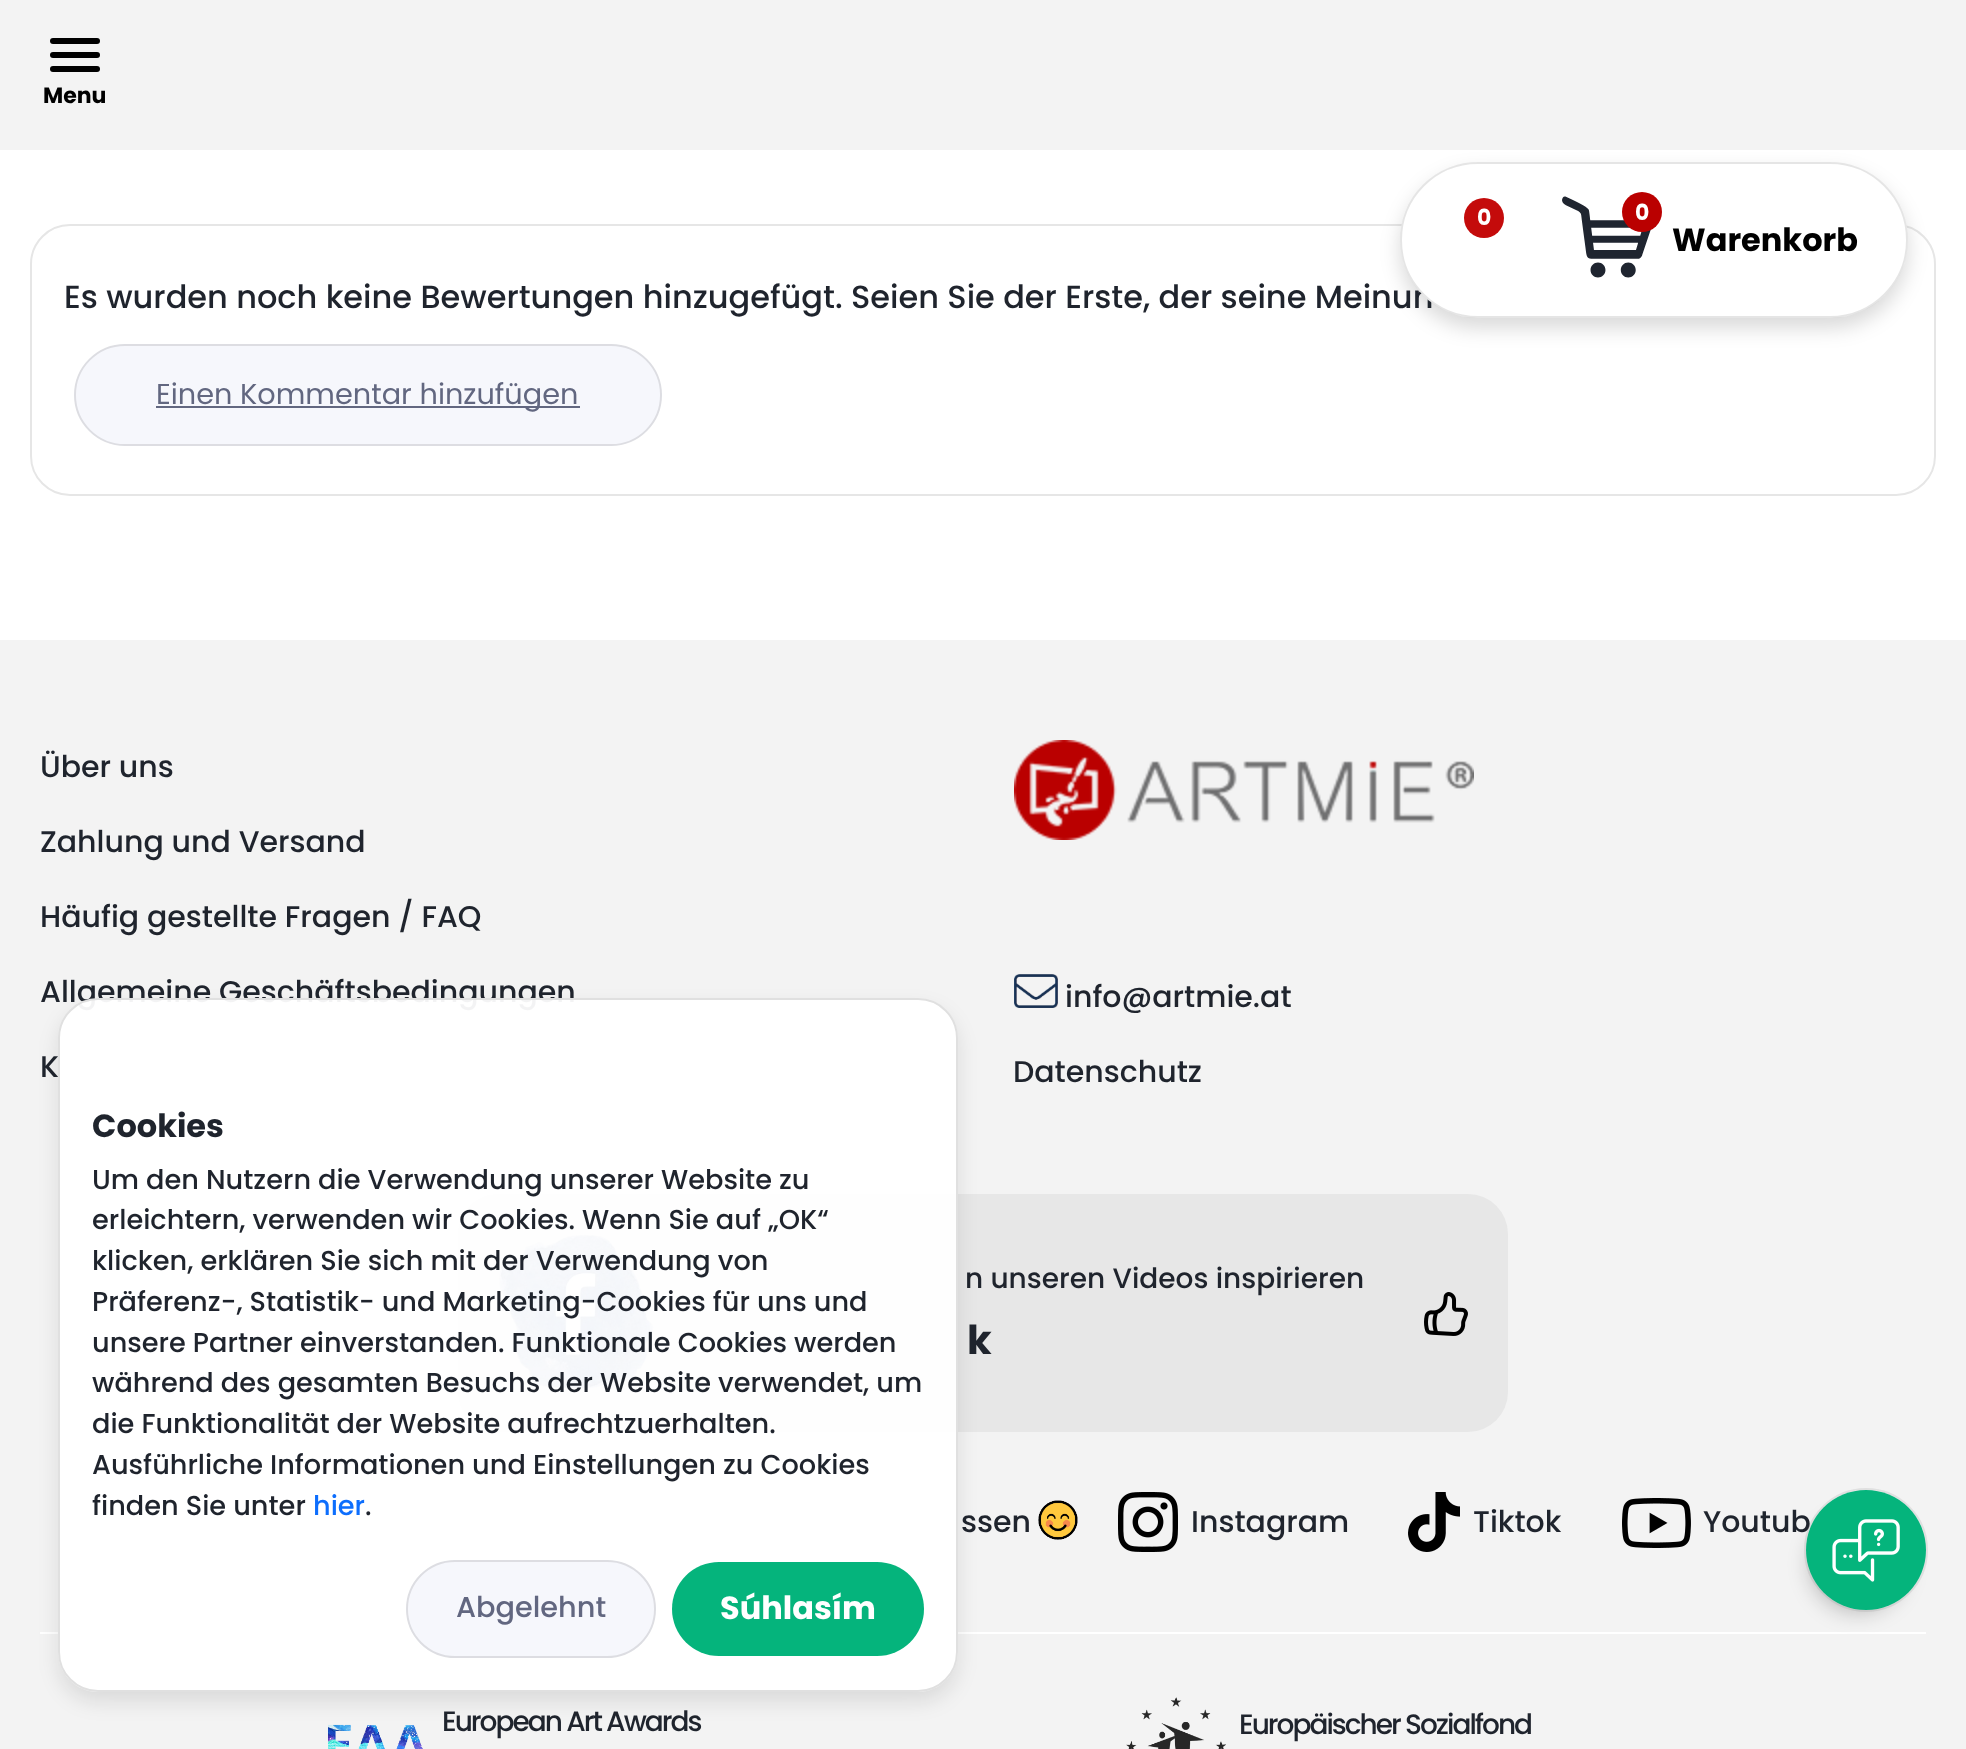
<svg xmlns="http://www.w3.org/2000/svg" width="1966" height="1749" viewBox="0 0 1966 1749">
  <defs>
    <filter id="blur1" x="-50%" y="-200%" width="200%" height="500%"><feGaussianBlur stdDeviation="10"/></filter>
    <clipPath id="clip1"><path d="M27 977H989V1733H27ZM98 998H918C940 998 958 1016 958 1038V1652C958 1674 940 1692 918 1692H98C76 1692 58 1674 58 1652V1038C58 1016 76 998 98 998Z" clip-rule="evenodd"/></clipPath>
  </defs>
  <rect width="100%" height="100%" fill="#ffffff"/>
  <rect x="31" y="225" width="1904" height="270" rx="39" fill="none" stroke="#e6e6e6" stroke-width="2"/>
  <rect x="1400" y="172" width="508" height="156" rx="78" fill="#000000" fill-opacity="0.15" filter="url(#blur1)"/>
  <rect x="0" y="0" width="1966" height="150" fill="#f3f3f3"/>
  <rect x="50" y="38" width="50" height="6" rx="3" fill="#000000"/>
  <rect x="50" y="52" width="50" height="6" rx="3" fill="#000000"/>
  <rect x="50" y="66" width="50" height="6" rx="3" fill="#000000"/>
  <text x="43" y="103" font-family="Poppins" font-size="22" font-weight="bold" fill="#000000">Menu</text>
  <text x="64" y="308" font-family="Poppins" font-size="32" font-weight="500" fill="#1f242d">Es wurden noch keine Bewertungen hinzugefügt. Seien Sie der Erste, der seine Meinun</text>
  <rect x="1400" y="162" width="508" height="156" rx="78" fill="#ffffff"/>
  <rect x="1401" y="163" width="506" height="154" rx="77" fill="none" stroke="#000000" stroke-opacity="0.1" stroke-width="2"/>
  <circle cx="1484" cy="218" r="20" fill="#c40b0b"/>
  <text x="1477" y="225" font-family="Poppins" font-size="22" font-weight="bold" fill="#ffffff">0</text>
  <image x="1562" y="196" width="89" height="82" href="img1.png"/>
  <circle cx="1642" cy="212" r="20" fill="#ba0000"/>
  <text x="1635" y="220" font-family="Poppins" font-size="22" font-weight="bold" fill="#ffffff">0</text>
  <text x="1672" y="251" font-family="Poppins" font-size="32" font-weight="bold" fill="#000000">Warenkorb</text>
  <rect x="74" y="344" width="588" height="102" rx="51" fill="#f6f7fc"/>
  <rect x="75" y="345" width="586" height="100" rx="50" fill="none" stroke="#000000" stroke-opacity="0.1" stroke-width="2"/>
  <rect x="156" y="406" width="424" height="2" fill="#626780"/>
  <text x="156" y="404" font-family="Poppins" font-size="28.75" fill="#626780">Einen Kommentar hinzufügen</text>
  <rect x="0" y="640" width="1966" height="1109" fill="#f3f3f3"/>
  <text x="40" y="777" font-family="Poppins" font-size="30" font-weight="500" fill="#1f242d">Über uns</text>
  <text x="40" y="852" font-family="Poppins" font-size="30" font-weight="500" fill="#1f242d">Zahlung und Versand</text>
  <text x="40" y="927" font-family="Poppins" font-size="30" font-weight="500" fill="#1f242d">Häufig gestellte Fragen / FAQ</text>
  <text x="40" y="1002" font-family="Poppins" font-size="30" font-weight="500" fill="#1f242d">Allgemeine Geschäftsbedingungen</text>
  <text x="40" y="1077" font-family="Poppins" font-size="30" font-weight="500" fill="#1f242d">K</text>
  <image x="1014" y="740" width="460" height="100" href="img2.png"/>
  <image x="1014" y="974" width="44" height="34" href="img3.png"/>
  <text x="1065" y="1007" font-family="Poppins" font-size="30" font-weight="500" fill="#1f242d">info@artmie.at</text>
  <text x="1013" y="1082" font-family="Poppins" font-size="30" font-weight="500" fill="#1f242d">Datenschutz</text>
  <rect x="458" y="1194" width="1050" height="238" rx="40" fill="#e7e7e7"/>
  <image x="499" y="1234" width="155" height="157" href="img4.png"/>
  <text x="965" y="1288" font-family="Poppins" font-size="28" font-weight="500" fill="#1f242d">n unseren Videos inspirieren</text>
  <text x="967" y="1354" font-family="Poppins" font-size="40" font-weight="bold" fill="#1f242d">k</text>
  <image x="1424" y="1292" width="44" height="44" href="img5.png"/>
  <text x="961" y="1532" font-family="Poppins" font-size="30" font-weight="500" fill="#1f242d">ssen</text>
  <image x="1038" y="1500" width="40" height="40" href="img6.png"/>
  <image x="1118" y="1492" width="60" height="60" href="img7.png"/>
  <text x="1191" y="1532" font-family="Poppins" font-size="30" font-weight="500" fill="#1f242d">Instagram</text>
  <image x="1408" y="1492" width="52" height="60" href="img8.png"/>
  <text x="1473" y="1532" font-family="Poppins" font-size="30" font-weight="500" fill="#1f242d">Tiktok</text>
  <image x="1622" y="1498" width="69" height="50" href="img9.png"/>
  <text x="1703" y="1532" font-family="Poppins" font-size="30" font-weight="500" fill="#1f242d">Youtub</text>
  <rect x="40" y="1632" width="1886" height="2" fill="#ffffff"/>
  <image x="328" y="1724" width="95" height="25" href="img10.png"/>
  <text x="442" y="1731" font-family="Poppins" font-size="28" font-weight="500" letter-spacing="-2" fill="#1f242d">European Art Awards</text>
  <image x="1126" y="1697" width="100" height="52" href="img11.png"/>
  <text x="1239" y="1734" font-family="Poppins" font-size="28" font-weight="500" letter-spacing="-2" fill="#1f242d">Europäischer Sozialfond</text>
  <g clip-path="url(#clip1)">
    <rect x="58" y="1008" width="900" height="694" rx="40" fill="#000000" fill-opacity="0.1" filter="url(#blur1)"/>
  </g>
  <rect x="59" y="999" width="898" height="692" rx="39" fill="#ffffff" fill-opacity="0.95" stroke="#e0e0e0" stroke-width="2"/>
  <text x="92" y="1137" font-family="Poppins" font-size="32" font-weight="bold" fill="#1f242d">Cookies</text>
  <text x="92" y="1189" font-family="Poppins" font-size="27.2" font-weight="500" fill="#1f242d">Um den Nutzern die Verwendung unserer Website zu</text>
  <text x="92" y="1229" font-family="Poppins" font-size="27.2" font-weight="500" fill="#1f242d">erleichtern, verwenden wir Cookies. Wenn Sie auf „OK“</text>
  <text x="92" y="1270" font-family="Poppins" font-size="27.2" font-weight="500" fill="#1f242d">klicken, erklären Sie sich mit der Verwendung von</text>
  <text x="92" y="1311" font-family="Poppins" font-size="27.2" font-weight="500" fill="#1f242d">Präferenz-, Statistik- und Marketing-Cookies für uns und</text>
  <text x="92" y="1352" font-family="Poppins" font-size="27.2" font-weight="500" fill="#1f242d">unsere Partner einverstanden. Funktionale Cookies werden</text>
  <text x="92" y="1392" font-family="Poppins" font-size="27.2" font-weight="500" fill="#1f242d">während des gesamten Besuchs der Website verwendet, um</text>
  <text x="92" y="1433" font-family="Poppins" font-size="27.2" font-weight="500" fill="#1f242d">die Funktionalität der Website aufrechtzuerhalten.</text>
  <text x="92" y="1474" font-family="Poppins" font-size="27.2" font-weight="500" fill="#1f242d">Ausführliche Informationen und Einstellungen zu Cookies</text>
  <text x="92" y="1515" font-family="Poppins" font-size="27.2" font-weight="500" fill="#1f242d">finden Sie unter</text>
  <text x="313" y="1515" font-family="Poppins" font-size="27.2" font-weight="500" fill="#0d6efd">hier</text>
  <text x="365" y="1515" font-family="Poppins" font-size="27.2" font-weight="500" fill="#1f242d">.</text>
  <rect x="406" y="1560" width="250" height="98" rx="49" fill="#f6f7fc"/>
  <rect x="407" y="1561" width="248" height="96" rx="48" fill="none" stroke="#000000" stroke-opacity="0.1" stroke-width="2"/>
  <text x="456" y="1617" font-family="Poppins" font-size="28.75" font-weight="500" fill="#626780">Abgelehnt</text>
  <rect x="672" y="1562" width="252" height="94" rx="47" fill="#05b47c"/>
  <text x="720" y="1619" font-family="Poppins" font-size="32" font-weight="bold" fill="#ffffff">Súhlasím</text>
  <rect x="1808" y="1514" width="100" height="100" rx="50" fill="#000000" fill-opacity="0.2" filter="url(#blur1)"/>
  <circle cx="1866" cy="1550" r="61" fill="none" stroke="#969696" stroke-opacity="0.2" stroke-width="2"/>
  <circle cx="1866" cy="1550" r="60" fill="#05b47c"/>
  <image x="1832" y="1519" width="68" height="63" href="img12.png"/>
</svg>
